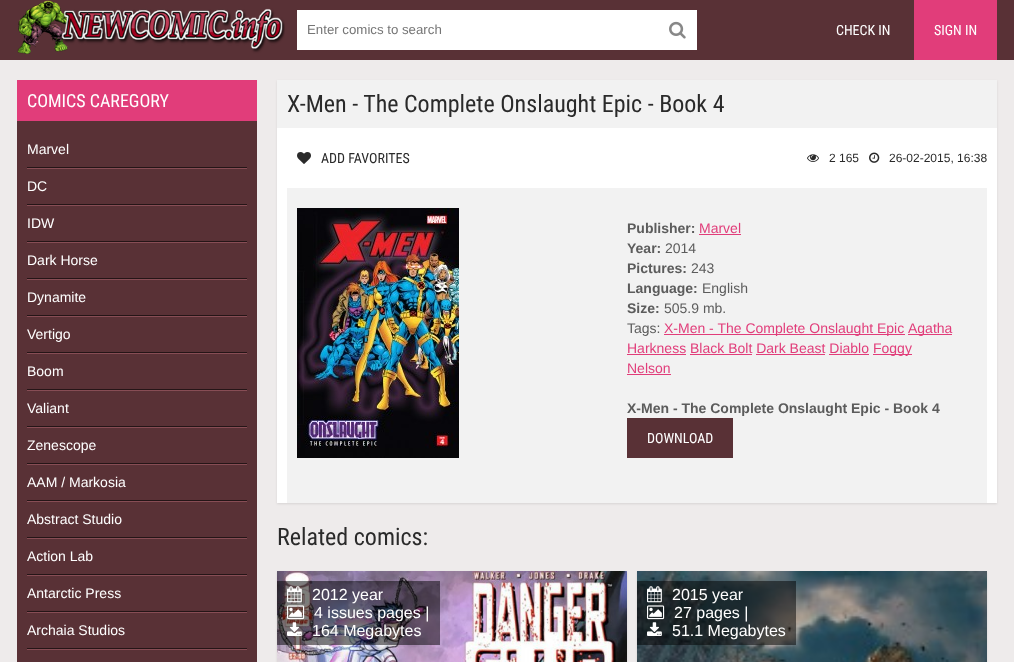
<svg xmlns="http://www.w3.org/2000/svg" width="1014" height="662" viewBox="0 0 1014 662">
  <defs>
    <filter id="blur1" x="-50%" y="-200%" width="200%" height="500%"><feGaussianBlur stdDeviation="1"/></filter>
  </defs>
  <rect width="100%" height="100%" fill="#eeebeb"/>
  <rect x="0" y="0" width="1014" height="60" fill="#593136"/>
  <image x="17" y="0" width="268" height="54" href="img1.png"/>
  <rect x="297" y="10" width="400" height="40" fill="#ffffff"/>
  <text x="307" y="34" font-family="Liberation Sans" font-size="13.25" fill="#757575">Enter comics to search</text>
  <image x="669" y="21" width="17" height="18" href="img2.png"/>
  <text x="836" y="35" font-family="Roboto Condensed" font-size="14" fill="#ffffff">CHECK IN</text>
  <rect x="914" y="0" width="83" height="60" fill="#e13d7a"/>
  <text x="934" y="35" font-family="Roboto Condensed" font-size="14" fill="#ffffff">SIGN IN</text>
  <rect x="17" y="121" width="240" height="541" fill="#593136"/>
  <rect x="17" y="80" width="240" height="41" fill="#e13d7a"/>
  <text x="27" y="107" font-family="Roboto Condensed" font-size="18" fill="#ffffff">COMICS CAREGORY</text>
  <rect x="27" y="168" width="220" height="1" fill="#874d55"/>
  <rect x="27" y="167" width="220" height="1" fill="#251517"/>
  <text x="27" y="154" font-family="Liberation Sans" font-size="14" fill="#ffffff">Marvel</text>
  <rect x="27" y="205" width="220" height="1" fill="#874d55"/>
  <rect x="27" y="204" width="220" height="1" fill="#251517"/>
  <text x="27" y="191" font-family="Liberation Sans" font-size="14" fill="#ffffff">DC</text>
  <rect x="27" y="242" width="220" height="1" fill="#874d55"/>
  <rect x="27" y="241" width="220" height="1" fill="#251517"/>
  <text x="27" y="228" font-family="Liberation Sans" font-size="14" fill="#ffffff">IDW</text>
  <rect x="27" y="279" width="220" height="1" fill="#874d55"/>
  <rect x="27" y="278" width="220" height="1" fill="#251517"/>
  <text x="27" y="265" font-family="Liberation Sans" font-size="14" fill="#ffffff">Dark Horse</text>
  <rect x="27" y="316" width="220" height="1" fill="#874d55"/>
  <rect x="27" y="315" width="220" height="1" fill="#251517"/>
  <text x="27" y="302" font-family="Liberation Sans" font-size="14" fill="#ffffff">Dynamite</text>
  <rect x="27" y="353" width="220" height="1" fill="#874d55"/>
  <rect x="27" y="352" width="220" height="1" fill="#251517"/>
  <text x="27" y="339" font-family="Liberation Sans" font-size="14" fill="#ffffff">Vertigo</text>
  <rect x="27" y="390" width="220" height="1" fill="#874d55"/>
  <rect x="27" y="389" width="220" height="1" fill="#251517"/>
  <text x="27" y="376" font-family="Liberation Sans" font-size="14" fill="#ffffff">Boom</text>
  <rect x="27" y="427" width="220" height="1" fill="#874d55"/>
  <rect x="27" y="426" width="220" height="1" fill="#251517"/>
  <text x="27" y="413" font-family="Liberation Sans" font-size="14" fill="#ffffff">Valiant</text>
  <rect x="27" y="464" width="220" height="1" fill="#874d55"/>
  <rect x="27" y="463" width="220" height="1" fill="#251517"/>
  <text x="27" y="450" font-family="Liberation Sans" font-size="14" fill="#ffffff">Zenescope</text>
  <rect x="27" y="501" width="220" height="1" fill="#874d55"/>
  <rect x="27" y="500" width="220" height="1" fill="#251517"/>
  <text x="27" y="487" font-family="Liberation Sans" font-size="14" fill="#ffffff">AAM / Markosia</text>
  <rect x="27" y="538" width="220" height="1" fill="#874d55"/>
  <rect x="27" y="537" width="220" height="1" fill="#251517"/>
  <text x="27" y="524" font-family="Liberation Sans" font-size="14" fill="#ffffff">Abstract Studio</text>
  <rect x="27" y="575" width="220" height="1" fill="#874d55"/>
  <rect x="27" y="574" width="220" height="1" fill="#251517"/>
  <text x="27" y="561" font-family="Liberation Sans" font-size="14" fill="#ffffff">Action Lab</text>
  <rect x="27" y="612" width="220" height="1" fill="#874d55"/>
  <rect x="27" y="611" width="220" height="1" fill="#251517"/>
  <text x="27" y="598" font-family="Liberation Sans" font-size="14" fill="#ffffff">Antarctic Press</text>
  <rect x="27" y="649" width="220" height="1" fill="#874d55"/>
  <rect x="27" y="648" width="220" height="1" fill="#251517"/>
  <text x="27" y="635" font-family="Liberation Sans" font-size="14" fill="#ffffff">Archaia Studios</text>
  <rect x="277" y="81" width="720" height="423" fill="#000000" fill-opacity="0.1" filter="url(#blur1)"/>
  <rect x="277" y="128" width="720" height="375" fill="#ffffff"/>
  <rect x="277" y="80" width="720" height="48" fill="#f2f2f2"/>
  <text x="287" y="112" font-family="Roboto Condensed" font-size="24" fill="#2a2a2a">X-Men - The Complete Onslaught Epic - Book 4</text>
  <image x="297" y="152" width="14" height="12" href="img3.png"/>
  <text x="321" y="163" font-family="Roboto Condensed" font-size="14" fill="#2a2a2a">ADD FAVORITES</text>
  <image x="807" y="154" width="12" height="8" href="img4.png"/>
  <text x="829" y="162" font-family="Liberation Sans" font-size="12" fill="#2a2a2a">2 165</text>
  <image x="869" y="152" width="11" height="11" href="img5.png"/>
  <text x="889" y="162" font-family="Liberation Sans" font-size="12" fill="#2a2a2a">26-02-2015, 16:38</text>
  <rect x="287" y="188" width="700" height="315" fill="#f2f2f2"/>
  <image x="297" y="208" width="162" height="250" href="img6.png"/>
  <text x="627" y="233" font-family="Liberation Sans" font-size="14" font-weight="bold" fill="#5c5c5c">Publisher:</text>
  <text x="699" y="233" font-family="Liberation Sans" font-size="14" fill="#e13d7a">Marvel</text>
  <rect x="699" y="234" width="42" height="1" fill="#e13d7a"/>
  <text x="627" y="253" font-family="Liberation Sans" font-size="14" font-weight="bold" fill="#5c5c5c">Year:</text>
  <text x="665" y="253" font-family="Liberation Sans" font-size="14" fill="#5c5c5c">2014</text>
  <text x="627" y="273" font-family="Liberation Sans" font-size="14" font-weight="bold" fill="#5c5c5c">Pictures:</text>
  <text x="691" y="273" font-family="Liberation Sans" font-size="14" fill="#5c5c5c">243</text>
  <text x="627" y="293" font-family="Liberation Sans" font-size="14" font-weight="bold" fill="#5c5c5c">Language:</text>
  <text x="702" y="293" font-family="Liberation Sans" font-size="14" fill="#5c5c5c">English</text>
  <text x="627" y="313" font-family="Liberation Sans" font-size="14" font-weight="bold" fill="#5c5c5c">Size:</text>
  <text x="664" y="313" font-family="Liberation Sans" font-size="14" fill="#5c5c5c">505.9 mb.</text>
  <text x="627" y="333" font-family="Liberation Sans" font-size="14" fill="#5c5c5c">Tags:</text>
  <rect x="664" y="334" width="241" height="1" fill="#e13d7a"/>
  <text x="664" y="333" font-family="Liberation Sans" font-size="14" fill="#e13d7a">X-Men - The Complete Onslaught Epic</text>
  <rect x="908" y="334" width="44" height="1" fill="#e13d7a"/>
  <text x="908" y="333" font-family="Liberation Sans" font-size="14" fill="#e13d7a">Agatha</text>
  <text x="627" y="353" font-family="Liberation Sans" font-size="14" fill="#e13d7a">Harkness Black Bolt Dark Beast Diablo</text>
  <rect x="627" y="354" width="59" height="1" fill="#e13d7a"/>
  <rect x="873" y="354" width="39" height="1" fill="#e13d7a"/>
  <text x="873" y="353" font-family="Liberation Sans" font-size="14" fill="#e13d7a">Foggy</text>
  <rect x="690" y="354" width="62" height="1" fill="#e13d7a"/>
  <rect x="756" y="354" width="69" height="1" fill="#e13d7a"/>
  <rect x="829" y="354" width="40" height="1" fill="#e13d7a"/>
  <text x="627" y="373" font-family="Liberation Sans" font-size="14" fill="#e13d7a">Nelson</text>
  <rect x="627" y="374" width="44" height="1" fill="#e13d7a"/>
  <text x="627" y="413" font-family="Liberation Sans" font-size="14" font-weight="bold" fill="#5c5c5c">X-Men - The Complete Onslaught Epic - Book 4</text>
  <rect x="627" y="418" width="106" height="40" fill="#593136"/>
  <text x="647" y="443" font-family="Roboto Condensed" font-size="14" fill="#ffffff">DOWNLOAD</text>
  <text x="277" y="545" font-family="Roboto Condensed" font-size="24" fill="#2a2a2a">Related comics:</text>
  <rect x="277" y="572" width="350" height="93" fill="#000000" fill-opacity="0.1" filter="url(#blur1)"/>
  <image x="277" y="571" width="350" height="91" href="img7.png"/>
  <rect x="277" y="581" width="163" height="64" fill="#000000" fill-opacity="0.5"/>
  <image x="287" y="586" width="15" height="17" href="img8.png"/>
  <text x="312" y="600" font-family="Liberation Sans" font-size="16" fill="#ffffff">2012 year</text>
  <image x="287" y="605" width="18" height="15" href="img9.png"/>
  <text x="314" y="618" font-family="Liberation Sans" font-size="16" fill="#ffffff">4 issues pages |</text>
  <image x="287" y="622" width="15" height="14" href="img10.png"/>
  <text x="312" y="636" font-family="Liberation Sans" font-size="16" fill="#ffffff">164 Megabytes</text>
  <rect x="637" y="572" width="350" height="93" fill="#000000" fill-opacity="0.1" filter="url(#blur1)"/>
  <image x="637" y="571" width="350" height="91" href="img11.png"/>
  <rect x="637" y="581" width="159" height="64" fill="#000000" fill-opacity="0.5"/>
  <image x="647" y="586" width="15" height="17" href="img12.png"/>
  <text x="672" y="600" font-family="Liberation Sans" font-size="16" fill="#ffffff">2015 year</text>
  <image x="647" y="605" width="18" height="15" href="img13.png"/>
  <text x="674" y="618" font-family="Liberation Sans" font-size="16" fill="#ffffff">27 pages |</text>
  <image x="647" y="622" width="15" height="14" href="img14.png"/>
  <text x="672" y="636" font-family="Liberation Sans" font-size="16" fill="#ffffff">51.1 Megabytes</text>
</svg>
